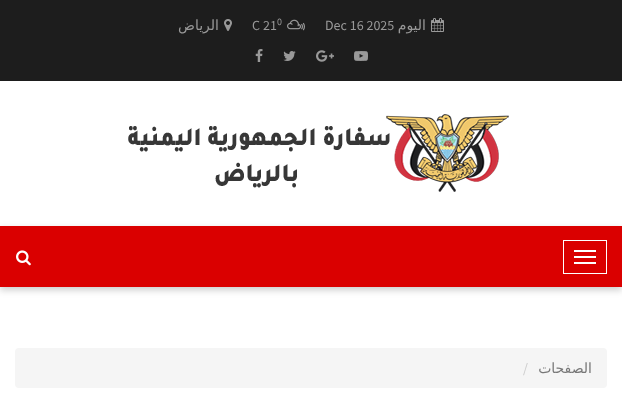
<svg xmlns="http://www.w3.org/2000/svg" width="622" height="396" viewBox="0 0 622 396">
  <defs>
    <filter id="blur1" x="-50%" y="-200%" width="200%" height="500%"><feGaussianBlur stdDeviation="3.5"/></filter>
  </defs>
  <rect width="100%" height="100%" fill="#ffffff"/>
  <rect x="0" y="0" width="622" height="81" fill="#1d1d1d"/>
  <image x="431" y="18" width="13" height="14" href="img1.png"/>
  <text x="426" y="30" font-family="DejaVu Sans" font-size="14" direction="rtl" fill="#999999">اليوم</text>
  <text x="325" y="30" font-family="Source Sans Pro" font-size="14" fill="#999999">Dec 16 2025</text>
  <image x="287" y="19" width="18" height="12" href="img2.png"/>
  <text x="277" y="25" font-family="Source Sans Pro" font-size="10" fill="#999999">0</text>
  <text x="263" y="30" font-family="Source Sans Pro" font-size="14" fill="#999999">21</text>
  <text x="252" y="30" font-family="Source Sans Pro" font-size="14" fill="#999999">C</text>
  <image x="224" y="19" width="8" height="12" href="img3.png"/>
  <text x="219" y="30" font-family="DejaVu Sans" font-size="14" direction="rtl" fill="#999999">الرياض</text>
  <image x="354" y="51" width="14" height="10" href="img4.png"/>
  <image x="316" y="50" width="18" height="12" href="img5.png"/>
  <image x="283" y="51" width="13" height="10" href="img6.png"/>
  <image x="255" y="49" width="8" height="13" href="img7.png"/>
  <image x="128" y="114" width="381" height="78" href="img8.png"/>
  <rect x="0" y="229" width="622" height="61" fill="#000000" fill-opacity="0.2" filter="url(#blur1)"/>
  <rect x="0" y="226" width="622" height="61" fill="#da0000"/>
  <rect x="563.5" y="240.5" width="43" height="33" fill="none" stroke="#ffffff"/>
  <rect x="574" y="250" width="22" height="2" fill="#ffffff"/>
  <rect x="574" y="256" width="22" height="2" fill="#ffffff"/>
  <rect x="574" y="262" width="22" height="2" fill="#ffffff"/>
  <image x="16" y="250" width="15" height="16" href="img9.png"/>
  <rect x="15" y="348" width="592" height="40" rx="4" fill="#f5f5f5"/>
  <text x="592" y="373" font-family="DejaVu Sans" font-size="14" direction="rtl" fill="#777777">الصفحات</text>
  <text x="523" y="373" font-family="Source Sans Pro" font-size="14" fill="#cccccc">/</text>
</svg>
